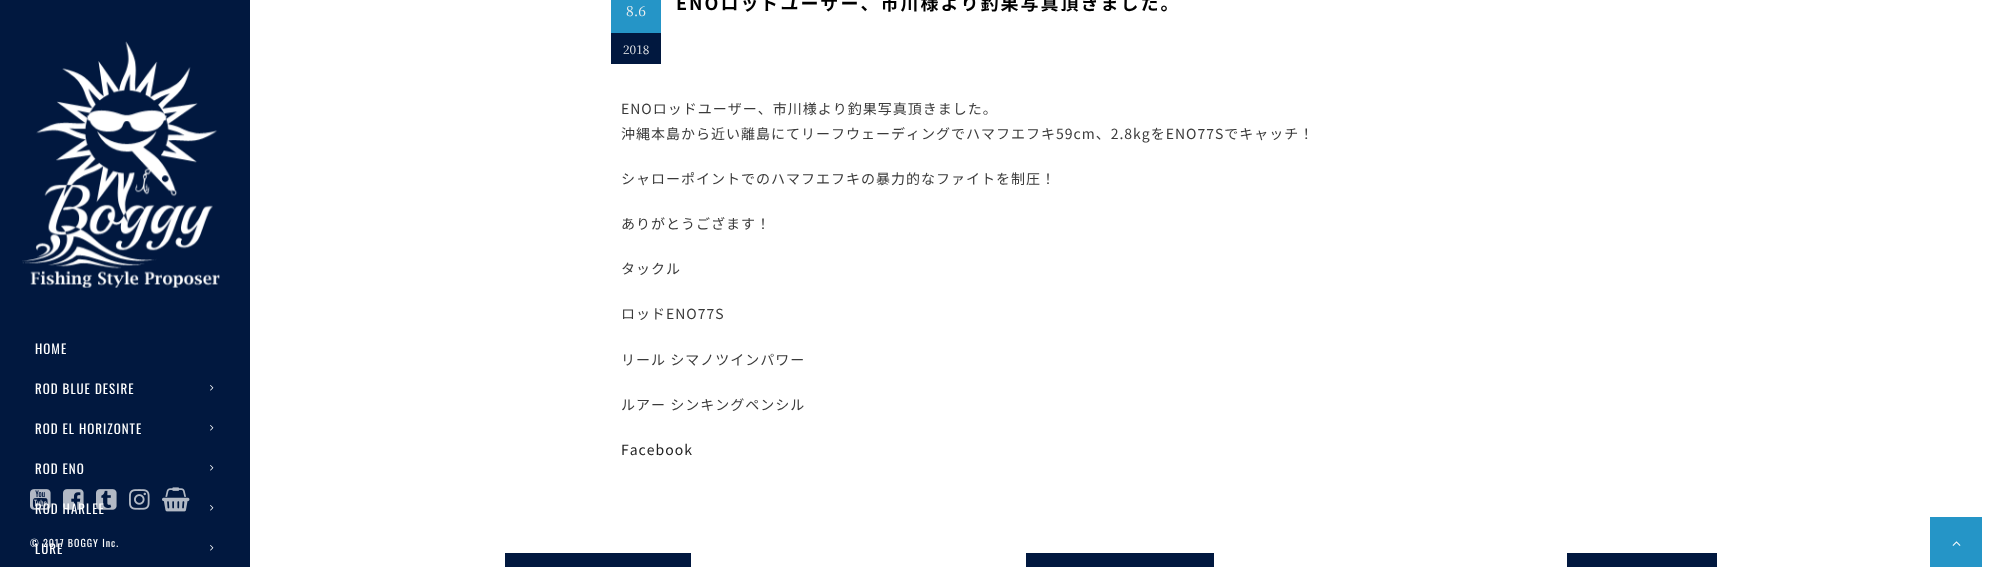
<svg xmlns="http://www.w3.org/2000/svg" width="1990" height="567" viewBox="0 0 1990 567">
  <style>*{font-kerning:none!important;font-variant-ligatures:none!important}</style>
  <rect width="100%" height="100%" fill="#ffffff"/>
  <rect x="0" y="0" width="250" height="567" fill="#01183f"/>
  <image x="22" y="41" width="198" height="247" href="img1.png"/>
  <text x="35" y="354" font-family="Oswald" font-size="13" letter-spacing="1" fill="#ffffff">HOME</text>
  <text x="35" y="394" font-family="Oswald" font-size="13" letter-spacing="1" fill="#ffffff">ROD BLUE DESIRE</text>
  <image x="210" y="385" width="4" height="6" href="img2.png"/>
  <text x="35" y="434" font-family="Oswald" font-size="13" letter-spacing="1" fill="#ffffff">ROD EL HORIZONTE</text>
  <image x="210" y="425" width="4" height="6" href="img2.png"/>
  <text x="35" y="474" font-family="Oswald" font-size="13" letter-spacing="1" fill="#ffffff">ROD ENO</text>
  <image x="210" y="465" width="4" height="6" href="img2.png"/>
  <text x="35" y="514" font-family="Oswald" font-size="13" letter-spacing="1" fill="#ffffff">ROD HARLEE</text>
  <image x="210" y="505" width="4" height="6" href="img2.png"/>
  <text x="35" y="554" font-family="Oswald" font-size="13" letter-spacing="1" fill="#ffffff">LURE</text>
  <image x="210" y="545" width="4" height="6" href="img2.png"/>
  <image x="30" y="489" width="21" height="21" href="img3.png"/>
  <image x="63" y="489" width="21" height="21" href="img4.png"/>
  <image x="96" y="489" width="21" height="21" href="img5.png"/>
  <image x="129" y="489" width="21" height="21" href="img6.png"/>
  <image x="162" y="487" width="28" height="25" href="img7.png"/>
  <text x="30" y="547" font-family="Oswald" font-size="10" letter-spacing="1" fill="#ffffff">© 2017 BOGGY Inc.</text>
  <rect x="611" y="0" width="50" height="33" fill="#2595c7"/>
  <text x="626" y="16" font-family="Noto Serif JP" font-size="14" fill="#f1f1f1">8.6</text>
  <rect x="611" y="33" width="50" height="31" fill="#01183f"/>
  <text x="623" y="54" font-family="Noto Serif JP" font-size="12" fill="#f1f1f1">2018</text>
  <text x="676" y="10" font-family="Noto Sans JP" font-size="18" font-weight="bold" letter-spacing="2" fill="#000000">ENOロッドユーザー、市川様より釣果写真頂きました。</text>
  <text x="621" y="114" font-family="Noto Sans JP" font-size="14" letter-spacing="1" fill="#3a3a3a">ENOロッドユーザー、市川様より釣果写真頂きました。</text>
  <text x="621" y="139" font-family="Noto Sans JP" font-size="14" letter-spacing="1" fill="#3a3a3a">沖縄本島から近い離島にてリーフウェーディングでハマフエフキ59cm、2.8kgをENO77Sでキャッチ！</text>
  <text x="621" y="184" font-family="Noto Sans JP" font-size="14" letter-spacing="1" fill="#3a3a3a">シャローポイントでのハマフエフキの暴力的なファイトを制圧！</text>
  <text x="621" y="229" font-family="Noto Sans JP" font-size="14" letter-spacing="1" fill="#3a3a3a">ありがとうござます！</text>
  <text x="621" y="274" font-family="Noto Sans JP" font-size="14" letter-spacing="1" fill="#3a3a3a">タックル</text>
  <text x="621" y="319" font-family="Noto Sans JP" font-size="14" letter-spacing="1" fill="#3a3a3a">ロッドENO77S</text>
  <text x="621" y="365" font-family="Noto Sans JP" font-size="14" letter-spacing="1" fill="#3a3a3a">リール シマノツインパワー</text>
  <text x="621" y="410" font-family="Noto Sans JP" font-size="14" letter-spacing="1" fill="#3a3a3a">ルアー シンキングペンシル</text>
  <text x="621" y="455" font-family="Noto Sans JP" font-size="14" letter-spacing="1" fill="#212121">Facebook</text>
  <rect x="505" y="553" width="186" height="14" fill="#01183f"/>
  <rect x="1026" y="553" width="188" height="14" fill="#01183f"/>
  <rect x="1567" y="553" width="150" height="14" fill="#01183f"/>
  <rect x="1930" y="517" width="52" height="50" fill="#2595c7"/>
  <image x="1952" y="541" width="9" height="5" href="img8.png"/>
</svg>
